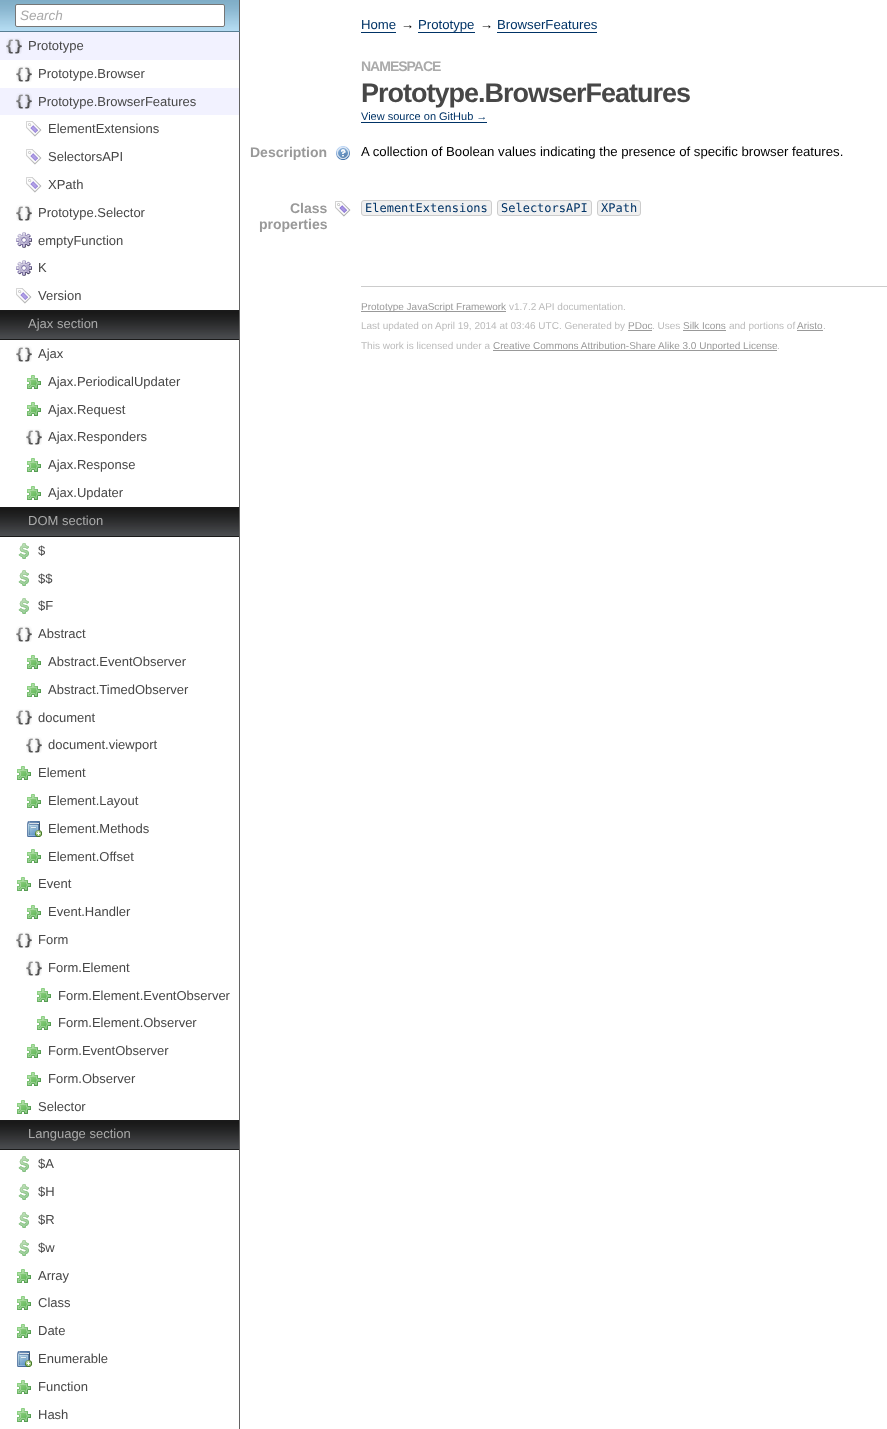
<svg xmlns="http://www.w3.org/2000/svg" width="887" height="1429" viewBox="0 0 887 1429">
  <rect width="100%" height="100%" fill="#ffffff"/>
  <image x="0" y="0" width="239" height="31" href="img1.png"/>
  <rect x="239" y="0" width="1" height="1429" fill="#636363"/>
  <rect x="0" y="31" width="240" height="1" fill="#587e93"/>
  <rect x="15.5" y="4.5" width="209" height="22" rx="1.5" fill="#ffffff" stroke="#767676"/>
  <text x="20" y="20" font-family="Liberation Sans" font-size="13.5" font-style="italic" fill="#aaaaaa">Search</text>
  <rect x="0" y="32" width="239" height="28" fill="#f2f2ff"/>
  <image x="6" y="38" width="16" height="16" href="img2.png"/>
  <text x="28" y="50" font-family="Liberation Sans" font-size="13" fill="#474747">Prototype</text>
  <image x="16" y="66" width="16" height="16" href="img3.png"/>
  <text x="38" y="78" font-family="Liberation Sans" font-size="13" fill="#474747">Prototype.Browser</text>
  <rect x="0" y="88" width="239" height="27" fill="#f2f2ff"/>
  <image x="16" y="93" width="16" height="16" href="img2.png"/>
  <text x="38" y="106" font-family="Liberation Sans" font-size="13" fill="#474747">Prototype.BrowserFeatures</text>
  <image x="26" y="121" width="16" height="16" href="img4.png"/>
  <text x="48" y="133" font-family="Liberation Sans" font-size="13" fill="#474747">ElementExtensions</text>
  <image x="26" y="149" width="16" height="16" href="img4.png"/>
  <text x="48" y="161" font-family="Liberation Sans" font-size="13" fill="#474747">SelectorsAPI</text>
  <image x="26" y="177" width="16" height="16" href="img4.png"/>
  <text x="48" y="189" font-family="Liberation Sans" font-size="13" fill="#474747">XPath</text>
  <image x="16" y="205" width="16" height="16" href="img3.png"/>
  <text x="38" y="217" font-family="Liberation Sans" font-size="13" fill="#474747">Prototype.Selector</text>
  <image x="16" y="232" width="16" height="16" href="img5.png"/>
  <text x="38" y="245" font-family="Liberation Sans" font-size="13" fill="#474747">emptyFunction</text>
  <image x="16" y="260" width="16" height="16" href="img5.png"/>
  <text x="38" y="272" font-family="Liberation Sans" font-size="13" fill="#474747">K</text>
  <image x="16" y="288" width="16" height="16" href="img4.png"/>
  <text x="38" y="300" font-family="Liberation Sans" font-size="13" fill="#474747">Version</text>
  <image x="0" y="311" width="239" height="28" href="img6.png"/>
  <rect x="0" y="310" width="239" height="1" fill="#1a1a1a"/>
  <rect x="0" y="339" width="239" height="1" fill="#1a1a1a"/>
  <text x="28" y="328" font-family="Liberation Sans" font-size="13" fill="#aaaaaa">Ajax section</text>
  <image x="16" y="346" width="16" height="16" href="img3.png"/>
  <text x="38" y="358" font-family="Liberation Sans" font-size="13" fill="#474747">Ajax</text>
  <image x="27" y="375" width="14" height="14" href="img7.png"/>
  <text x="48" y="386" font-family="Liberation Sans" font-size="13" fill="#474747">Ajax.PeriodicalUpdater</text>
  <image x="27" y="402" width="14" height="14" href="img7.png"/>
  <text x="48" y="414" font-family="Liberation Sans" font-size="13" fill="#474747">Ajax.Request</text>
  <image x="26" y="429" width="16" height="16" href="img3.png"/>
  <text x="48" y="441" font-family="Liberation Sans" font-size="13" fill="#474747">Ajax.Responders</text>
  <image x="27" y="458" width="14" height="14" href="img7.png"/>
  <text x="48" y="469" font-family="Liberation Sans" font-size="13" fill="#474747">Ajax.Response</text>
  <image x="27" y="486" width="14" height="14" href="img7.png"/>
  <text x="48" y="497" font-family="Liberation Sans" font-size="13" fill="#474747">Ajax.Updater</text>
  <image x="0" y="508" width="239" height="28" href="img6.png"/>
  <rect x="0" y="507" width="239" height="1" fill="#1a1a1a"/>
  <rect x="0" y="536" width="239" height="1" fill="#1a1a1a"/>
  <text x="28" y="525" font-family="Liberation Sans" font-size="13" fill="#aaaaaa">DOM section</text>
  <image x="18" y="543" width="11" height="16" href="img8.png"/>
  <text x="38" y="555" font-family="Liberation Sans" font-size="13" fill="#474747">$</text>
  <image x="18" y="570" width="11" height="16" href="img8.png"/>
  <text x="38" y="583" font-family="Liberation Sans" font-size="13" fill="#474747">$$</text>
  <image x="18" y="598" width="11" height="16" href="img8.png"/>
  <text x="38" y="610" font-family="Liberation Sans" font-size="13" fill="#474747">$F</text>
  <image x="16" y="626" width="16" height="16" href="img3.png"/>
  <text x="38" y="638" font-family="Liberation Sans" font-size="13" fill="#474747">Abstract</text>
  <image x="27" y="655" width="14" height="14" href="img7.png"/>
  <text x="48" y="666" font-family="Liberation Sans" font-size="13" fill="#474747">Abstract.EventObserver</text>
  <image x="27" y="683" width="14" height="14" href="img7.png"/>
  <text x="48" y="694" font-family="Liberation Sans" font-size="13" fill="#474747">Abstract.TimedObserver</text>
  <image x="16" y="709" width="16" height="16" href="img3.png"/>
  <text x="38" y="722" font-family="Liberation Sans" font-size="13" fill="#474747">document</text>
  <image x="26" y="737" width="16" height="16" href="img3.png"/>
  <text x="48" y="749" font-family="Liberation Sans" font-size="13" fill="#474747">document.viewport</text>
  <image x="17" y="766" width="14" height="14" href="img7.png"/>
  <text x="38" y="777" font-family="Liberation Sans" font-size="13" fill="#474747">Element</text>
  <image x="27" y="794" width="14" height="14" href="img7.png"/>
  <text x="48" y="805" font-family="Liberation Sans" font-size="13" fill="#474747">Element.Layout</text>
  <image x="27" y="821" width="15" height="16" href="img9.png"/>
  <text x="48" y="833" font-family="Liberation Sans" font-size="13" fill="#474747">Element.Methods</text>
  <image x="27" y="849" width="14" height="14" href="img7.png"/>
  <text x="48" y="861" font-family="Liberation Sans" font-size="13" fill="#474747">Element.Offset</text>
  <image x="17" y="877" width="14" height="14" href="img7.png"/>
  <text x="38" y="888" font-family="Liberation Sans" font-size="13" fill="#474747">Event</text>
  <image x="27" y="905" width="14" height="14" href="img7.png"/>
  <text x="48" y="916" font-family="Liberation Sans" font-size="13" fill="#474747">Event.Handler</text>
  <image x="16" y="932" width="16" height="16" href="img3.png"/>
  <text x="38" y="944" font-family="Liberation Sans" font-size="13" fill="#474747">Form</text>
  <image x="26" y="960" width="16" height="16" href="img3.png"/>
  <text x="48" y="972" font-family="Liberation Sans" font-size="13" fill="#474747">Form.Element</text>
  <image x="37" y="988" width="14" height="14" href="img7.png"/>
  <text x="58" y="1000" font-family="Liberation Sans" font-size="13" fill="#474747">Form.Element.EventObserver</text>
  <image x="37" y="1016" width="14" height="14" href="img7.png"/>
  <text x="58" y="1027" font-family="Liberation Sans" font-size="13" fill="#474747">Form.Element.Observer</text>
  <image x="27" y="1044" width="14" height="14" href="img7.png"/>
  <text x="48" y="1055" font-family="Liberation Sans" font-size="13" fill="#474747">Form.EventObserver</text>
  <image x="27" y="1072" width="14" height="14" href="img7.png"/>
  <text x="48" y="1083" font-family="Liberation Sans" font-size="13" fill="#474747">Form.Observer</text>
  <image x="17" y="1100" width="14" height="14" href="img7.png"/>
  <text x="38" y="1111" font-family="Liberation Sans" font-size="13" fill="#474747">Selector</text>
  <image x="0" y="1121" width="239" height="28" href="img6.png"/>
  <rect x="0" y="1120" width="239" height="1" fill="#1a1a1a"/>
  <rect x="0" y="1149" width="239" height="1" fill="#1a1a1a"/>
  <text x="28" y="1138" font-family="Liberation Sans" font-size="13" fill="#aaaaaa">Language section</text>
  <image x="18" y="1156" width="11" height="16" href="img8.png"/>
  <text x="38" y="1168" font-family="Liberation Sans" font-size="13" fill="#474747">$A</text>
  <image x="18" y="1184" width="11" height="16" href="img8.png"/>
  <text x="38" y="1196" font-family="Liberation Sans" font-size="13" fill="#474747">$H</text>
  <image x="18" y="1212" width="11" height="16" href="img8.png"/>
  <text x="38" y="1224" font-family="Liberation Sans" font-size="13" fill="#474747">$R</text>
  <image x="18" y="1240" width="11" height="16" href="img8.png"/>
  <text x="38" y="1252" font-family="Liberation Sans" font-size="13" fill="#474747">$w</text>
  <image x="17" y="1269" width="14" height="14" href="img7.png"/>
  <text x="38" y="1280" font-family="Liberation Sans" font-size="13" fill="#474747">Array</text>
  <image x="17" y="1296" width="14" height="14" href="img7.png"/>
  <text x="38" y="1307" font-family="Liberation Sans" font-size="13" fill="#474747">Class</text>
  <image x="17" y="1324" width="14" height="14" href="img7.png"/>
  <text x="38" y="1335" font-family="Liberation Sans" font-size="13" fill="#474747">Date</text>
  <image x="17" y="1351" width="15" height="16" href="img9.png"/>
  <text x="38" y="1363" font-family="Liberation Sans" font-size="13" fill="#474747">Enumerable</text>
  <image x="17" y="1380" width="14" height="14" href="img7.png"/>
  <text x="38" y="1391" font-family="Liberation Sans" font-size="13" fill="#474747">Function</text>
  <image x="17" y="1408" width="14" height="14" href="img7.png"/>
  <text x="38" y="1419" font-family="Liberation Sans" font-size="13" fill="#474747">Hash</text>
  <text x="361" y="29" font-family="Liberation Sans" font-size="13.2" fill="#003366">Home</text>
  <rect x="361" y="32" width="35" height="1" fill="#003366"/>
  <text x="401" y="29" font-family="Liberation Sans" font-size="13.2" fill="#000000">→</text>
  <text x="418" y="29" font-family="Liberation Sans" font-size="13.2" fill="#003366">Prototype</text>
  <rect x="418" y="32" width="57" height="1" fill="#003366"/>
  <text x="480" y="29" font-family="Liberation Sans" font-size="13.2" fill="#000000">→</text>
  <text x="497" y="29" font-family="Liberation Sans" font-size="13.2" fill="#003366">BrowserFeatures</text>
  <rect x="497" y="32" width="100" height="1" fill="#003366"/>
  <text x="361" y="71" font-family="Liberation Sans" font-size="14" font-weight="bold" letter-spacing="-1" fill="#aaaaaa">NAMESPACE</text>
  <text x="361" y="102" font-family="Liberation Sans" font-size="27" font-weight="bold" letter-spacing="-1" fill="#474747">Prototype.BrowserFeatures</text>
  <text x="361" y="120" font-family="Liberation Sans" font-size="11" fill="#003366">View source on GitHub →</text>
  <rect x="361" y="122" width="126" height="1" fill="#003366"/>
  <image x="336" y="146" width="14" height="14" href="img10.png"/>
  <text x="250" y="157" font-family="Liberation Sans" font-size="14" font-weight="bold" fill="#999999">Description</text>
  <text x="361" y="156" font-family="Liberation Sans" font-size="13.2" fill="#000000">A collection of Boolean values indicating the presence of specific browser features.</text>
  <image x="335" y="201" width="16" height="16" href="img11.png"/>
  <text x="290" y="213" font-family="Liberation Sans" font-size="14" font-weight="bold" fill="#999999">Class</text>
  <text x="259" y="229" font-family="Liberation Sans" font-size="14" font-weight="bold" fill="#999999">properties</text>
  <rect x="361.5" y="200.5" width="130" height="15" rx="2.5" fill="#f0f0f0" stroke="#cccccc"/>
  <text x="365" y="212" font-family="DejaVu Sans Mono" font-size="12" fill="#003366">ElementExtensions</text>
  <rect x="497.5" y="200.5" width="94" height="15" rx="2.5" fill="#f0f0f0" stroke="#cccccc"/>
  <text x="501" y="212" font-family="DejaVu Sans Mono" font-size="12" fill="#003366">SelectorsAPI</text>
  <rect x="597.5" y="200.5" width="43" height="15" rx="2.5" fill="#f0f0f0" stroke="#cccccc"/>
  <text x="601" y="212" font-family="DejaVu Sans Mono" font-size="12" fill="#003366">XPath</text>
  <rect x="361" y="286" width="526" height="1" fill="#cccccc"/>
  <rect x="361" y="311" width="145" height="1" fill="#999999"/>
  <text x="361" y="310" font-family="Liberation Sans" font-size="10" fill="#999999">Prototype JavaScript Framework</text>
  <text x="509" y="310" font-family="Liberation Sans" font-size="10" fill="#bbbbbb">v1.7.2 API documentation.</text>
  <text x="361" y="329" font-family="Liberation Sans" font-size="10" fill="#bbbbbb">Last updated on April 19, 2014 at 03:46 UTC. Generated by</text>
  <text x="628" y="329" font-family="Liberation Sans" font-size="10" fill="#999999">PDoc</text>
  <rect x="628" y="330" width="24" height="1" fill="#999999"/>
  <text x="652" y="329" font-family="Liberation Sans" font-size="10" fill="#bbbbbb">. Uses</text>
  <text x="683" y="329" font-family="Liberation Sans" font-size="10" fill="#999999">Silk Icons</text>
  <rect x="683" y="330" width="43" height="1" fill="#999999"/>
  <text x="729" y="329" font-family="Liberation Sans" font-size="10" fill="#bbbbbb">and portions of</text>
  <text x="797" y="329" font-family="Liberation Sans" font-size="10" fill="#999999">Aristo</text>
  <rect x="797" y="330" width="26" height="1" fill="#999999"/>
  <text x="823" y="329" font-family="Liberation Sans" font-size="10" fill="#bbbbbb">.</text>
  <text x="361" y="349" font-family="Liberation Sans" font-size="10" fill="#bbbbbb">This work is licensed under a</text>
  <rect x="493" y="350" width="284" height="1" fill="#999999"/>
  <text x="493" y="349" font-family="Liberation Sans" font-size="10" fill="#999999">Creative Commons Attribution-Share Alike 3.0 Unported License</text>
  <text x="777" y="349" font-family="Liberation Sans" font-size="10" fill="#bbbbbb">.</text>
</svg>
